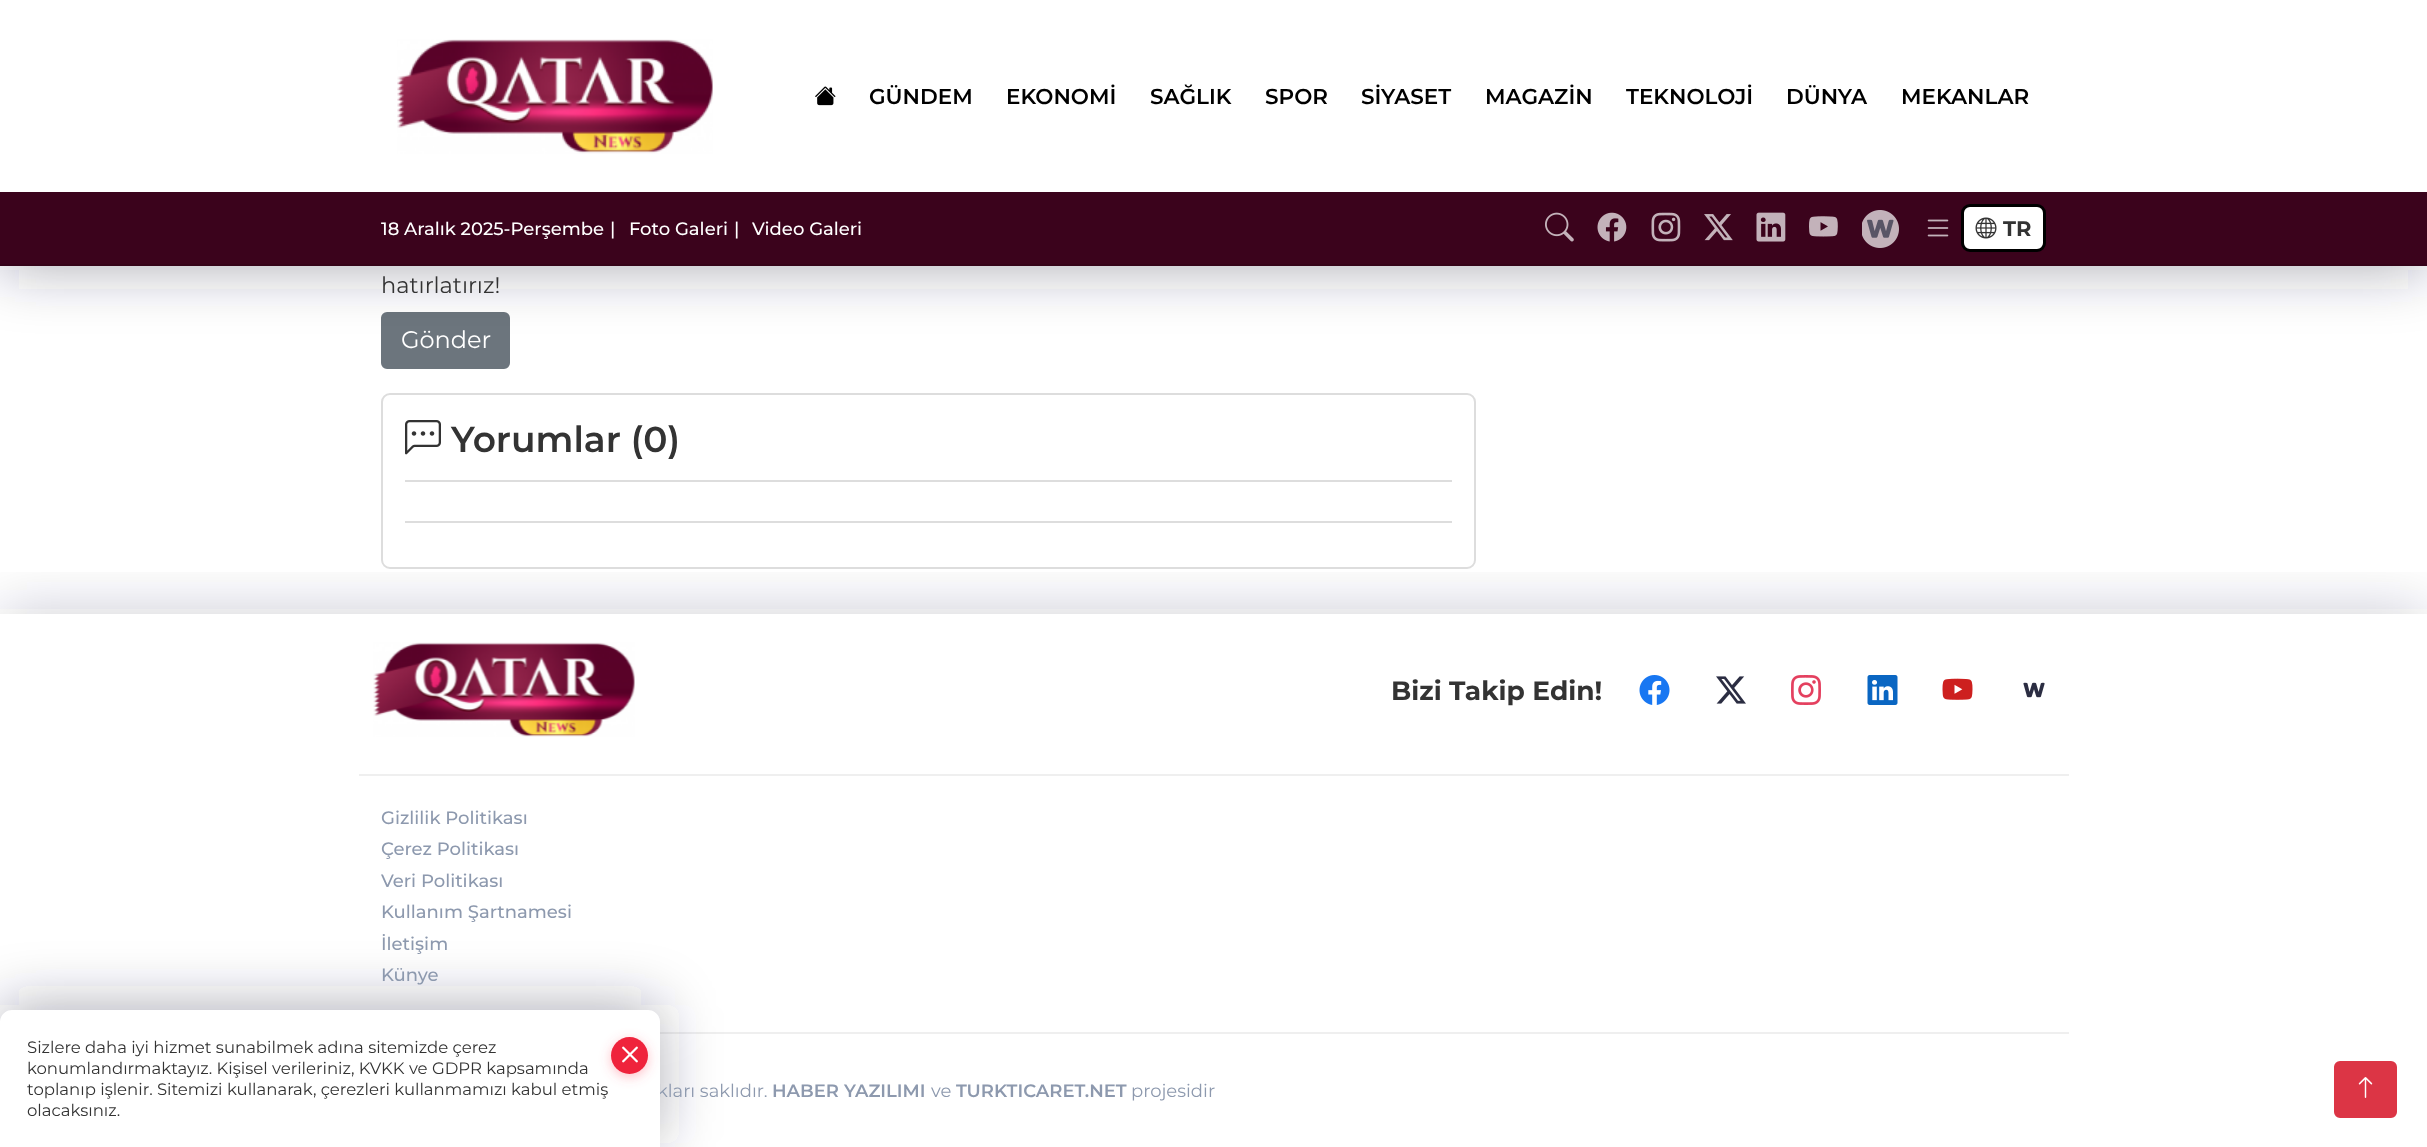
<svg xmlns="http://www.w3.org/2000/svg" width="2427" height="1147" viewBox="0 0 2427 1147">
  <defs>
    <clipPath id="clip1"><rect x="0" y="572" width="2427" height="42"/></clipPath>
    <filter id="blur1" x="-50%" y="-200%" width="200%" height="500%"><feGaussianBlur stdDeviation="28.5"/></filter>
    <filter id="blur2" x="-50%" y="-200%" width="200%" height="500%"><feGaussianBlur stdDeviation="6"/></filter>
  </defs>
  <rect width="100%" height="100%" fill="#ffffff"/>
  <rect x="382" y="394" width="1093" height="174" rx="8" fill="none" stroke="#dddddd" stroke-width="2"/>
  <rect x="405" y="521" width="1047" height="2" fill="#dddddd"/>
  <g clip-path="url(#clip1)">
    <rect x="0" y="609" width="2427" height="534" fill="#2b2d42" fill-opacity="0.2" filter="url(#blur1)"/>
  </g>
  <rect x="660" y="1032" width="1409" height="2" fill="#efefef"/>
  <rect x="0" y="1005" width="660" height="138" rx="12" fill="#2b2d42" fill-opacity="0.36" filter="url(#blur1)"/>
  <text x="657" y="1097" font-family="Montserrat" font-size="18" fill="#8d99ae">kları saklıdır.</text>
  <path d="M12 1010H648C654.5 1010 660 1015.5 660 1022V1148H0V1022C0 1015.5 5.5 1010 12 1010Z" fill="#ffffff"/>
  <text x="27" y="1053" font-family="Montserrat" font-size="16.5" fill="#333333">Sizlere daha iyi hizmet sunabilmek adına sitemizde çerez</text>
  <rect x="611" y="1040" width="37" height="37" rx="18.5" fill="#ff566a" fill-opacity="0.38" filter="url(#blur2)"/>
  <circle cx="629.5" cy="1055.5" r="18.5" fill="#ef233c"/>
  <image x="622" y="1046" width="16" height="17" href="img1.png"/>
  <text x="27" y="1074" font-family="Montserrat" font-size="16.5" fill="#333333">konumlandırmaktayız. Kişisel verileriniz, KVKK ve GDPR kapsamında</text>
  <text x="27" y="1095" font-family="Montserrat" font-size="16.5" fill="#333333">toplanıp işlenir. Sitemizi kullanarak, çerezleri kullanmamızı kabul etmiş</text>
  <text x="27" y="1116" font-family="Montserrat" font-size="16.5" fill="#333333">olacaksınız.</text>
  <rect x="382" y="313" width="127" height="55" rx="5" fill="#6c757d" stroke="#6c757d" stroke-width="2"/>
  <rect x="0" y="5" width="2427" height="265" fill="#2b2d42" fill-opacity="0.36" filter="url(#blur1)"/>
  <rect x="0" y="0" width="2427" height="192" fill="#ffffff"/>
  <image x="397" y="39" width="316" height="115" href="img2.png"/>
  <image x="815" y="86" width="21" height="20" href="img3.png"/>
  <text x="869" y="104" font-family="Montserrat" font-size="21.5" font-weight="600" fill="#000000">GÜNDEM</text>
  <text x="1006" y="104" font-family="Montserrat" font-size="21.5" font-weight="600" fill="#000000">EKONOMİ</text>
  <text x="1150" y="104" font-family="Montserrat" font-size="21.5" font-weight="600" fill="#000000">SAĞLIK</text>
  <text x="1265" y="104" font-family="Montserrat" font-size="21.5" font-weight="600" fill="#000000">SPOR</text>
  <text x="1361" y="104" font-family="Montserrat" font-size="21.5" font-weight="600" fill="#000000">SİYASET</text>
  <text x="1485" y="104" font-family="Montserrat" font-size="21.5" font-weight="600" fill="#000000">MAGAZİN</text>
  <text x="1626" y="104" font-family="Montserrat" font-size="21.5" font-weight="600" fill="#000000">TEKNOLOJİ</text>
  <text x="1786" y="104" font-family="Montserrat" font-size="21.5" font-weight="600" fill="#000000">DÜNYA</text>
  <text x="1901" y="104" font-family="Montserrat" font-size="21.5" font-weight="600" fill="#000000">MEKANLAR</text>
  <rect x="0" y="192" width="2427" height="72" fill="#3b031c"/>
  <rect x="0" y="264" width="2427" height="2" fill="#350319"/>
  <text x="381" y="235" font-family="Montserrat" font-size="18" font-weight="500" fill="#ffffff">18 Aralık 2025-Perşembe</text>
  <text x="610" y="235" font-family="Montserrat" font-size="18" font-weight="500" fill="#ffffff">|</text>
  <text x="629" y="235" font-family="Montserrat" font-size="18" font-weight="500" fill="#ffffff">Foto Galeri</text>
  <text x="734" y="235" font-family="Montserrat" font-size="18" font-weight="500" fill="#ffffff">|</text>
  <text x="752" y="235" font-family="Montserrat" font-size="18" font-weight="500" fill="#ffffff">Video Galeri</text>
  <image x="1545" y="212" width="29" height="30" href="img4.png"/>
  <image x="1597" y="212" width="30" height="30" href="img5.png"/>
  <image x="1651" y="212" width="30" height="30" href="img6.png"/>
  <image x="1704" y="214" width="29" height="27" href="img7.png"/>
  <image x="1756" y="212" width="30" height="30" href="img8.png"/>
  <image x="1809" y="216" width="29" height="21" href="img9.png"/>
  <image x="1862" y="210" width="37" height="38" href="img10.png"/>
  <image x="1927" y="219" width="22" height="18" href="img11.png"/>
  <rect x="1962.5" y="205.5" width="82" height="45" rx="7.5" fill="#ffffff" stroke="#000000" stroke-width="3"/>
  <image x="1975" y="217" width="22" height="22" href="img12.png"/>
  <text x="2003" y="236" font-family="Montserrat" font-size="21" font-weight="bold" fill="#333333">TR</text>
  <text x="381" y="293" font-family="Montserrat" font-size="22.5" fill="#333333">hatırlatırız!</text>
  <text x="401" y="348" font-family="Montserrat" font-size="24" fill="#ffffff">Gönder</text>
  <rect x="405" y="480" width="1047" height="2" fill="#dddddd"/>
  <image x="405" y="420" width="36" height="35" href="img13.png"/>
  <text x="451" y="452" font-family="Montserrat" font-size="36" font-weight="600" fill="#333333">Yorumlar (0)</text>
  <rect x="359" y="774" width="1710" height="2" fill="#efefef"/>
  <image x="373" y="642" width="262" height="95" href="img14.png"/>
  <text x="1391" y="700" font-family="Montserrat" font-size="26.5" font-weight="bold" fill="#333333">Bizi Takip Edin!</text>
  <image x="1639" y="675" width="31" height="30" href="img15.png"/>
  <image x="1716" y="676" width="30" height="28" href="img16.png"/>
  <image x="1791" y="675" width="30" height="30" href="img17.png"/>
  <image x="1867" y="675" width="31" height="30" href="img18.png"/>
  <image x="1942" y="678" width="31" height="22" href="img19.png"/>
  <image x="2023" y="682" width="22" height="16" href="img20.png"/>
  <text x="381" y="824" font-family="Montserrat" font-size="18" font-weight="500" fill="#8d99ae">Gizlilik Politikası</text>
  <text x="381" y="855" font-family="Montserrat" font-size="18" font-weight="500" fill="#8d99ae">Çerez Politikası</text>
  <text x="381" y="887" font-family="Montserrat" font-size="18" font-weight="500" fill="#8d99ae">Veri Politikası</text>
  <text x="381" y="918" font-family="Montserrat" font-size="18" font-weight="500" fill="#8d99ae">Kullanım Şartnamesi</text>
  <text x="381" y="950" font-family="Montserrat" font-size="18" font-weight="500" fill="#8d99ae">İletişim</text>
  <text x="381" y="981" font-family="Montserrat" font-size="18" font-weight="500" fill="#8d99ae">Künye</text>
  <text x="772" y="1097" font-family="Montserrat" font-size="18" font-weight="600" fill="#8d99ae">HABER YAZILIMI</text>
  <text x="931" y="1097" font-family="Montserrat" font-size="18" fill="#8d99ae">ve</text>
  <text x="956" y="1097" font-family="Montserrat" font-size="18" font-weight="600" fill="#8d99ae">TURKTICARET.NET</text>
  <text x="1131" y="1097" font-family="Montserrat" font-size="18" fill="#8d99ae">projesidir</text>
  <rect x="2335" y="1062" width="61" height="55" rx="5" fill="#dc3545" stroke="#dc3545" stroke-width="2"/>
  <image x="2358" y="1077" width="15" height="21" href="img21.png"/>
</svg>
